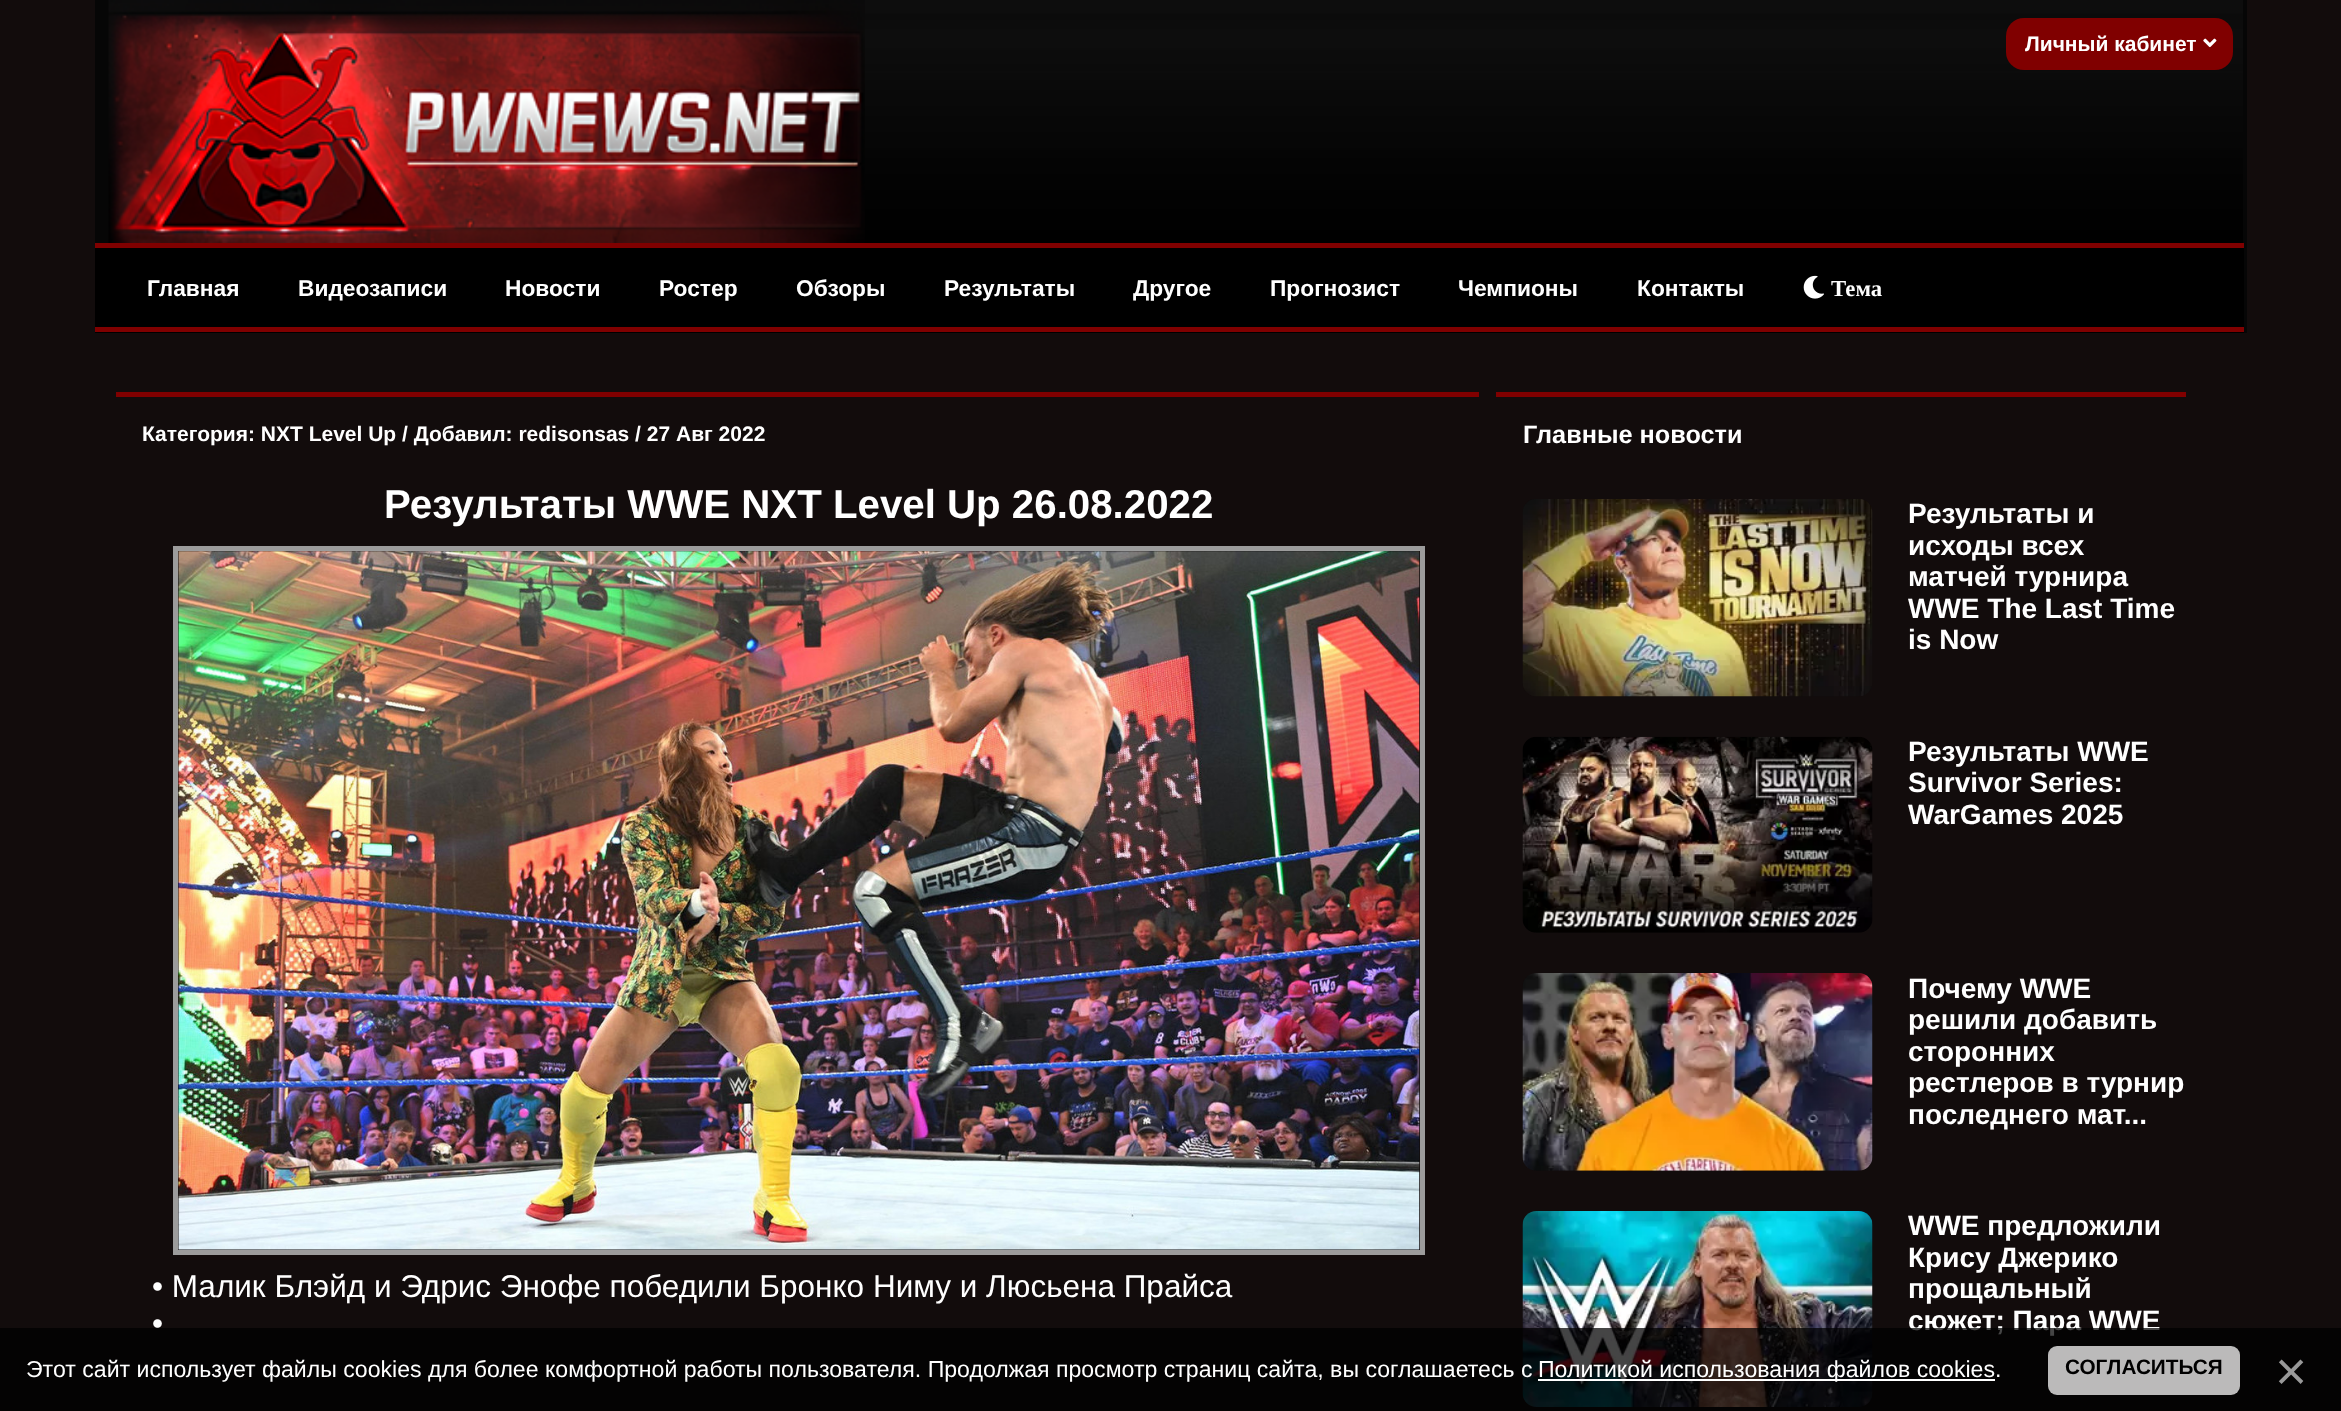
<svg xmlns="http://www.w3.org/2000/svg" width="2341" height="1411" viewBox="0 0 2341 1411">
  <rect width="100%" height="100%" fill="#120c0c"/>
  <rect x="95" y="0" width="2152" height="243" fill="#060606"/>
  <image x="865" y="0" width="1378" height="243" href="img1.png"/>
  <image x="108" y="0" width="757" height="243" href="img2.png"/>
  <rect x="2006" y="18" width="227" height="52" rx="18" fill="#800000"/>
  <text x="2025" y="51" font-family="Liberation Sans" font-size="21" font-weight="bold" fill="#ffffff">Личный кабинет</text>
  <image x="2203" y="38" width="14" height="10" href="img3.png"/>
  <rect x="2244" y="243" width="3" height="90" fill="#060606"/>
  <rect x="95" y="248" width="2149" height="85" fill="#000000"/>
  <rect x="95" y="243" width="2149" height="5" fill="#800000"/>
  <rect x="95" y="327" width="2149" height="5" fill="#800000"/>
  <text x="147" y="296" font-family="Liberation Sans" font-size="22.75" font-weight="bold" fill="#ffffff">Главная</text>
  <text x="298" y="296" font-family="Liberation Sans" font-size="22.75" font-weight="bold" fill="#ffffff">Видеозаписи</text>
  <text x="505" y="296" font-family="Liberation Sans" font-size="22.75" font-weight="bold" fill="#ffffff">Новости</text>
  <text x="659" y="296" font-family="Liberation Sans" font-size="22.75" font-weight="bold" fill="#ffffff">Ростер</text>
  <text x="796" y="296" font-family="Liberation Sans" font-size="22.75" font-weight="bold" fill="#ffffff">Обзоры</text>
  <text x="944" y="296" font-family="Liberation Sans" font-size="22.75" font-weight="bold" fill="#ffffff">Результаты</text>
  <text x="1133" y="296" font-family="Liberation Sans" font-size="22.75" font-weight="bold" fill="#ffffff">Другое</text>
  <text x="1270" y="296" font-family="Liberation Sans" font-size="22.75" font-weight="bold" fill="#ffffff">Прогнозист</text>
  <text x="1458" y="296" font-family="Liberation Sans" font-size="22.75" font-weight="bold" fill="#ffffff">Чемпионы</text>
  <text x="1637" y="296" font-family="Liberation Sans" font-size="22.75" font-weight="bold" fill="#ffffff">Контакты</text>
  <image x="1803" y="275" width="21" height="24" href="img4.png"/>
  <text x="1831" y="296" font-family="Liberation Serif" font-size="22.75" font-weight="bold" fill="#ffffff">Тема</text>
  <rect x="116" y="392" width="1363" height="5" fill="#800000"/>
  <text x="142" y="441" font-family="Liberation Sans" font-size="21" font-weight="bold" fill="#ffffff">Категория: NXT Level Up / Добавил: redisonsas / 27 Авг 2022</text>
  <text x="384" y="518" font-family="Liberation Sans" font-size="40.25" font-weight="bold" fill="#ffffff">Результаты WWE NXT Level Up 26.08.2022</text>
  <rect x="175.5" y="548.5" width="1247" height="704" fill="none" stroke="#9c9c9c" stroke-width="5"/>
  <image x="178" y="551" width="1242" height="699" href="img5.png"/>
  <text x="152" y="1297" font-family="Liberation Sans" font-size="31.5" fill="#ffffff">• Малик Блэйд и Эдрис Энофе победили Бронко Ниму и Люсьена Прайса</text>
  <text x="152" y="1334" font-family="Liberation Sans" font-size="31.5" fill="#ffffff">•</text>
  <rect x="1496" y="392" width="690" height="5" fill="#800000"/>
  <text x="1523" y="443" font-family="Liberation Sans" font-size="25.25" font-weight="bold" fill="#ffffff">Главные новости</text>
  <image x="1522" y="499" width="351" height="198" href="img6.png"/>
  <text x="1908" y="523" font-family="Liberation Sans" font-size="28" font-weight="bold" fill="#ffffff">Результаты и</text>
  <text x="1908" y="555" font-family="Liberation Sans" font-size="28" font-weight="bold" fill="#ffffff">исходы всех</text>
  <text x="1908" y="586" font-family="Liberation Sans" font-size="28" font-weight="bold" fill="#ffffff">матчей турнира</text>
  <text x="1908" y="618" font-family="Liberation Sans" font-size="28" font-weight="bold" fill="#ffffff">WWE The Last Time</text>
  <text x="1908" y="649" font-family="Liberation Sans" font-size="28" font-weight="bold" fill="#ffffff">is Now</text>
  <image x="1522" y="736" width="351" height="197" href="img7.png"/>
  <text x="1908" y="761" font-family="Liberation Sans" font-size="28" font-weight="bold" fill="#ffffff">Результаты WWE</text>
  <text x="1908" y="792" font-family="Liberation Sans" font-size="28" font-weight="bold" fill="#ffffff">Survivor Series:</text>
  <text x="1908" y="824" font-family="Liberation Sans" font-size="28" font-weight="bold" fill="#ffffff">WarGames 2025</text>
  <image x="1522" y="973" width="351" height="198" href="img8.png"/>
  <text x="1908" y="998" font-family="Liberation Sans" font-size="28" font-weight="bold" fill="#ffffff">Почему WWE</text>
  <text x="1908" y="1029" font-family="Liberation Sans" font-size="28" font-weight="bold" fill="#ffffff">решили добавить</text>
  <text x="1908" y="1061" font-family="Liberation Sans" font-size="28" font-weight="bold" fill="#ffffff">сторонних</text>
  <text x="1908" y="1092" font-family="Liberation Sans" font-size="28" font-weight="bold" fill="#ffffff">рестлеров в турнир</text>
  <text x="1908" y="1124" font-family="Liberation Sans" font-size="28" font-weight="bold" fill="#ffffff">последнего мат...</text>
  <image x="1522" y="1211" width="351" height="196" href="img9.png"/>
  <text x="1908" y="1235" font-family="Liberation Sans" font-size="28" font-weight="bold" fill="#ffffff">WWE предложили</text>
  <text x="1908" y="1267" font-family="Liberation Sans" font-size="28" font-weight="bold" fill="#ffffff">Крису Джерико</text>
  <text x="1908" y="1298" font-family="Liberation Sans" font-size="28" font-weight="bold" fill="#ffffff">прощальный</text>
  <text x="1908" y="1330" font-family="Liberation Sans" font-size="28" font-weight="bold" fill="#ffffff">сюжет; Пара WWE</text>
  <rect x="0" y="1328" width="2341" height="83" fill="#000000" fill-opacity="0.73"/>
  <text x="26" y="1377" font-family="Liberation Sans" font-size="23.1" fill="#ffffff">Этот сайт использует файлы cookies для более комфортной работы пользователя. Продолжая просмотр страниц сайта, вы соглашаетесь с</text>
  <rect x="1538" y="1379" width="457" height="2" fill="#ffffff"/>
  <text x="1538" y="1377" font-family="Liberation Sans" font-size="23.1" fill="#ffffff">Политикой использования файлов cookies</text>
  <text x="1995" y="1377" font-family="Liberation Sans" font-size="23.1" fill="#ffffff">.</text>
  <rect x="2048" y="1346" width="192" height="49" rx="9" fill="#ffffff" fill-opacity="0.73"/>
  <text x="2065" y="1374" font-family="Liberation Sans" font-size="20.75" font-weight="bold" fill="#000000">СОГЛАСИТЬСЯ</text>
  <text x="2275" y="1390" font-family="Liberation Sans" font-size="55" fill="#999999">×</text>
</svg>
